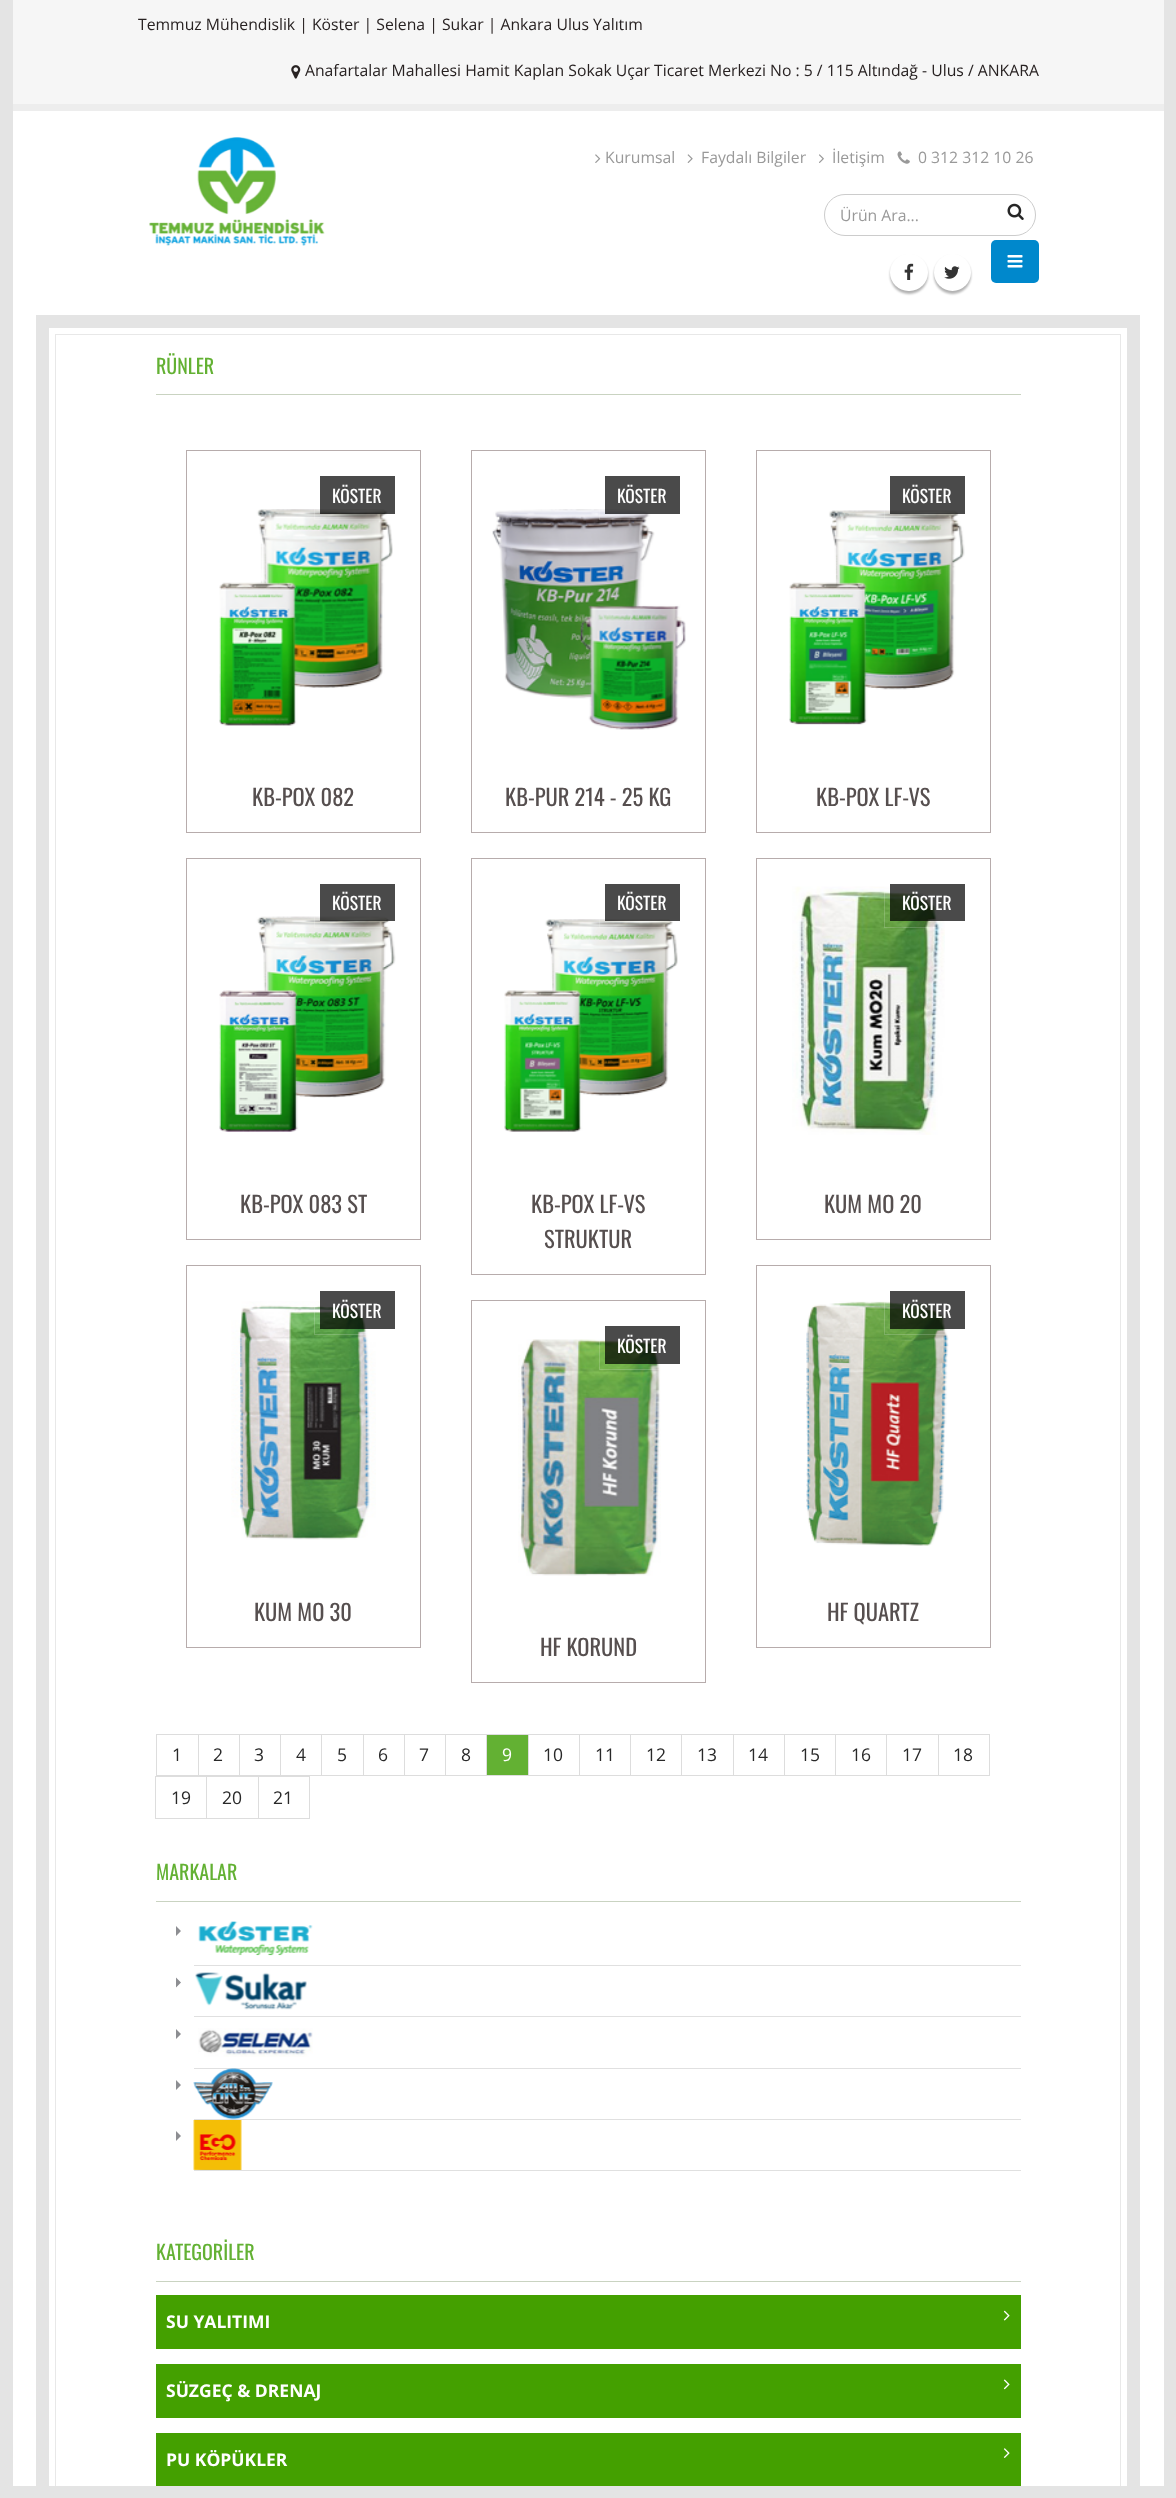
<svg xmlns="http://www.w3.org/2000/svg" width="1176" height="2498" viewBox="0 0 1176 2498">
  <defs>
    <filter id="blur1" x="-50%" y="-200%" width="200%" height="500%"><feGaussianBlur stdDeviation="1"/></filter>
  </defs>
  <rect width="100%" height="100%" fill="#ffffff"/>
  <rect x="0" y="0" width="1176" height="13" fill="#e4e4e4"/>
  <rect x="0" y="13" width="13" height="2473" fill="#e4e4e4"/>
  <rect x="13" y="0" width="1151" height="104" fill="#f6f6f6"/>
  <text x="138" y="30" font-family="Open Sans" font-size="15.75" fill="#282222">Temmuz Mühendislik | Köster | Selena | Sukar | Ankara Ulus Yalıtım</text>
  <image x="291" y="65" width="10" height="14" href="img1.png"/>
  <text x="305" y="76" font-family="Open Sans" font-size="15.75" fill="#282222">Anafartalar Mahallesi Hamit Kaplan Sokak Uçar Ticaret Merkezi No : 5 / 115 Altındağ - Ulus / ANKARA</text>
  <rect x="13" y="104" width="1151" height="7" fill="#ededed"/>
  <image x="149" y="137" width="176" height="109" href="img2.png"/>
  <image x="595" y="154" width="6" height="9" href="img3.png"/>
  <text x="605" y="163" font-family="Open Sans" font-size="15.75" fill="#999999">Kurumsal</text>
  <image x="687" y="154" width="6" height="9" href="img4.png"/>
  <text x="701" y="163" font-family="Open Sans" font-size="15.75" fill="#999999">Faydalı Bilgiler</text>
  <image x="819" y="154" width="5" height="9" href="img5.png"/>
  <text x="832" y="163" font-family="Open Sans" font-size="15.75" fill="#999999">İletişim</text>
  <image x="897" y="151" width="13" height="13" href="img6.png"/>
  <text x="918" y="163" font-family="Open Sans" font-size="15.75" fill="#999999">0 312 312 10 26</text>
  <rect x="824.5" y="194.5" width="211" height="41" rx="20.5" fill="none" stroke="#cccccc"/>
  <text x="840" y="221" font-family="Open Sans" font-size="15.75" fill="#999999">Ürün Ara...</text>
  <image x="1007" y="203" width="17" height="17" href="img7.png"/>
  <rect x="890" y="256" width="38" height="38" rx="19" fill="#000000" fill-opacity="0.3" filter="url(#blur1)"/>
  <rect x="890" y="254" width="38" height="37" rx="18.5" fill="#ffffff"/>
  <image x="904" y="263" width="10" height="17" href="img8.png"/>
  <rect x="934" y="256" width="37" height="38" rx="18.5" fill="#000000" fill-opacity="0.3" filter="url(#blur1)"/>
  <circle cx="952.5" cy="272.5" r="18.5" fill="#ffffff"/>
  <image x="944" y="266" width="16" height="13" href="img9.png"/>
  <rect x="991" y="240" width="48" height="43" rx="5" fill="#0088cc"/>
  <image x="1007" y="255" width="16" height="13" href="img10.png"/>
  <rect x="42.5" y="321.5" width="1091" height="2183" fill="none" stroke="#e4e4e4" stroke-width="13"/>
  <rect x="55.5" y="334.5" width="1065" height="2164" fill="none" stroke="#e8e8e8"/>
  <rect x="156" y="394" width="865" height="1" fill="#c9d3c1"/>
  <text x="156" y="374" font-family="Oswald" font-size="20" fill="#63b133">RÜNLER</text>
  <rect x="186.5" y="450.5" width="234" height="382" fill="none" stroke="#b7acac"/>
  <image x="219" y="509" width="174" height="217" href="img11.png"/>
  <rect x="320" y="476" width="75" height="38" fill="#000000" fill-opacity="0.71"/>
  <rect x="314.5" y="470.5" width="86" height="49" fill="none" stroke="#ffffff" stroke-opacity="0.18"/>
  <text x="332" y="503" font-family="Oswald" font-size="17.5" fill="#ffffff">KÖSTER</text>
  <text x="252" y="806" font-family="Oswald" font-size="22.5" fill="#564f4f">KB-POX 082</text>
  <rect x="471.5" y="450.5" width="234" height="382" fill="none" stroke="#b7acac"/>
  <image x="492" y="509" width="194" height="221" href="img12.png"/>
  <rect x="491.5" y="470.5" width="194" height="275" fill="none" stroke="#ffffff" stroke-opacity="0.18"/>
  <rect x="605" y="476" width="75" height="38" fill="#000000" fill-opacity="0.71"/>
  <rect x="599.5" y="470.5" width="86" height="49" fill="none" stroke="#ffffff" stroke-opacity="0.18"/>
  <text x="617" y="503" font-family="Oswald" font-size="17.5" fill="#ffffff">KÖSTER</text>
  <text x="505" y="806" font-family="Oswald" font-size="22.5" fill="#564f4f">KB-PUR 214 - 25 KG</text>
  <rect x="756.5" y="450.5" width="234" height="382" fill="none" stroke="#b7acac"/>
  <image x="789" y="510" width="176" height="215" href="img13.png"/>
  <rect x="890" y="476" width="75" height="38" fill="#000000" fill-opacity="0.71"/>
  <rect x="884.5" y="470.5" width="86" height="49" fill="none" stroke="#ffffff" stroke-opacity="0.18"/>
  <text x="902" y="503" font-family="Oswald" font-size="17.5" fill="#ffffff">KÖSTER</text>
  <text x="816" y="806" font-family="Oswald" font-size="22.5" fill="#564f4f">KB-POX LF-VS</text>
  <rect x="186.5" y="858.5" width="234" height="381" fill="none" stroke="#b7acac"/>
  <image x="219" y="916" width="177" height="216" href="img14.png"/>
  <rect x="320" y="884" width="75" height="37" fill="#000000" fill-opacity="0.71"/>
  <rect x="314.5" y="878.5" width="86" height="49" fill="none" stroke="#ffffff" stroke-opacity="0.18"/>
  <text x="332" y="910" font-family="Oswald" font-size="17.5" fill="#ffffff">KÖSTER</text>
  <text x="240" y="1213" font-family="Oswald" font-size="22.5" fill="#564f4f">KB-POX 083 ST</text>
  <rect x="471.5" y="858.5" width="234" height="416" fill="none" stroke="#b7acac"/>
  <image x="504" y="919" width="174" height="213" href="img15.png"/>
  <rect x="605" y="884" width="75" height="37" fill="#000000" fill-opacity="0.71"/>
  <rect x="599.5" y="878.5" width="86" height="49" fill="none" stroke="#ffffff" stroke-opacity="0.18"/>
  <text x="617" y="910" font-family="Oswald" font-size="17.5" fill="#ffffff">KÖSTER</text>
  <text x="531" y="1213" font-family="Oswald" font-size="22.5" fill="#564f4f">KB-POX LF-VS</text>
  <text x="544" y="1248" font-family="Oswald" font-size="22.5" fill="#564f4f">STRUKTUR</text>
  <rect x="756.5" y="858.5" width="234" height="381" fill="none" stroke="#b7acac"/>
  <image x="792" y="886" width="153" height="249" href="img16.png"/>
  <rect x="890" y="884" width="75" height="37" fill="#000000" fill-opacity="0.71"/>
  <rect x="884.5" y="878.5" width="86" height="49" fill="none" stroke="#ffffff" stroke-opacity="0.18"/>
  <text x="902" y="910" font-family="Oswald" font-size="17.5" fill="#ffffff">KÖSTER</text>
  <text x="824" y="1213" font-family="Oswald" font-size="22.5" fill="#564f4f">KUM MO 20</text>
  <rect x="186.5" y="1265.5" width="234" height="382" fill="none" stroke="#b7acac"/>
  <image x="231" y="1301" width="145" height="239" href="img17.png"/>
  <rect x="320" y="1291" width="75" height="38" fill="#000000" fill-opacity="0.71"/>
  <rect x="314.5" y="1285.5" width="86" height="49" fill="none" stroke="#ffffff" stroke-opacity="0.18"/>
  <text x="332" y="1318" font-family="Oswald" font-size="17.5" fill="#ffffff">KÖSTER</text>
  <text x="254" y="1621" font-family="Oswald" font-size="22.5" fill="#564f4f">KUM MO 30</text>
  <rect x="471.5" y="1300.5" width="234" height="382" fill="none" stroke="#b7acac"/>
  <image x="518" y="1339" width="143" height="237" href="img18.png"/>
  <rect x="605" y="1326" width="75" height="38" fill="#000000" fill-opacity="0.71"/>
  <rect x="599.5" y="1320.5" width="86" height="49" fill="none" stroke="#ffffff" stroke-opacity="0.18"/>
  <text x="617" y="1353" font-family="Oswald" font-size="17.5" fill="#ffffff">KÖSTER</text>
  <text x="540" y="1656" font-family="Oswald" font-size="22.5" fill="#564f4f">HF KORUND</text>
  <rect x="756.5" y="1265.5" width="234" height="382" fill="none" stroke="#b7acac"/>
  <image x="806" y="1301" width="143" height="245" href="img19.png"/>
  <rect x="890" y="1291" width="75" height="38" fill="#000000" fill-opacity="0.71"/>
  <rect x="884.5" y="1285.5" width="86" height="49" fill="none" stroke="#ffffff" stroke-opacity="0.18"/>
  <text x="902" y="1318" font-family="Oswald" font-size="17.5" fill="#ffffff">KÖSTER</text>
  <text x="827" y="1621" font-family="Oswald" font-size="22.5" fill="#564f4f">HF QUARTZ</text>
  <rect x="156.5" y="1734.5" width="42" height="41" fill="none" stroke="#dddddd"/>
  <text x="172" y="1761" font-family="Open Sans" font-size="17.5" fill="#292929">1</text>
  <rect x="198.5" y="1734.5" width="41" height="41" fill="none" stroke="#dddddd"/>
  <text x="213" y="1761" font-family="Open Sans" font-size="17.5" fill="#292929">2</text>
  <rect x="239.5" y="1734.5" width="41" height="41" fill="none" stroke="#dddddd"/>
  <text x="254" y="1761" font-family="Open Sans" font-size="17.5" fill="#292929">3</text>
  <rect x="280.5" y="1734.5" width="42" height="41" fill="none" stroke="#dddddd"/>
  <text x="296" y="1761" font-family="Open Sans" font-size="17.5" fill="#292929">4</text>
  <rect x="322" y="1735" width="1" height="40" fill="#ffffff"/>
  <rect x="321.5" y="1734.5" width="42" height="41" fill="none" stroke="#dddddd"/>
  <text x="337" y="1761" font-family="Open Sans" font-size="17.5" fill="#292929">5</text>
  <rect x="363.5" y="1734.5" width="41" height="41" fill="none" stroke="#dddddd"/>
  <text x="378" y="1761" font-family="Open Sans" font-size="17.5" fill="#292929">6</text>
  <rect x="404.5" y="1734.5" width="41" height="41" fill="none" stroke="#dddddd"/>
  <text x="419" y="1761" font-family="Open Sans" font-size="17.5" fill="#292929">7</text>
  <rect x="445.5" y="1734.5" width="42" height="41" fill="none" stroke="#dddddd"/>
  <text x="461" y="1761" font-family="Open Sans" font-size="17.5" fill="#292929">8</text>
  <rect x="528.5" y="1734.5" width="51" height="41" fill="none" stroke="#dddddd"/>
  <rect x="486.5" y="1734.5" width="42" height="41" fill="#63b133" stroke="#dddddd"/>
  <text x="502" y="1761" font-family="Open Sans" font-size="17.5" fill="#ffffff">9</text>
  <text x="543" y="1761" font-family="Open Sans" font-size="17.5" fill="#292929">10</text>
  <rect x="579.5" y="1734.5" width="51" height="41" fill="none" stroke="#dddddd"/>
  <text x="595" y="1761" font-family="Open Sans" font-size="17.5" fill="#292929">11</text>
  <rect x="630.5" y="1734.5" width="52" height="41" fill="none" stroke="#dddddd"/>
  <text x="646" y="1761" font-family="Open Sans" font-size="17.5" fill="#292929">12</text>
  <rect x="682" y="1735" width="1" height="40" fill="#ffffff"/>
  <rect x="681.5" y="1734.5" width="52" height="41" fill="none" stroke="#dddddd"/>
  <text x="697" y="1761" font-family="Open Sans" font-size="17.5" fill="#292929">13</text>
  <rect x="733.5" y="1734.5" width="51" height="41" fill="none" stroke="#dddddd"/>
  <text x="748" y="1761" font-family="Open Sans" font-size="17.5" fill="#292929">14</text>
  <rect x="784.5" y="1734.5" width="51" height="41" fill="none" stroke="#dddddd"/>
  <text x="800" y="1761" font-family="Open Sans" font-size="17.5" fill="#292929">15</text>
  <rect x="835.5" y="1734.5" width="52" height="41" fill="none" stroke="#dddddd"/>
  <text x="851" y="1761" font-family="Open Sans" font-size="17.5" fill="#292929">16</text>
  <rect x="887" y="1735" width="1" height="40" fill="#ffffff"/>
  <rect x="886.5" y="1734.5" width="52" height="41" fill="none" stroke="#dddddd"/>
  <text x="902" y="1761" font-family="Open Sans" font-size="17.5" fill="#292929">17</text>
  <rect x="938.5" y="1734.5" width="51" height="41" fill="none" stroke="#dddddd"/>
  <text x="953" y="1761" font-family="Open Sans" font-size="17.5" fill="#292929">18</text>
  <rect x="155.5" y="1776.5" width="52" height="42" fill="none" stroke="#dddddd"/>
  <text x="171" y="1804" font-family="Open Sans" font-size="17.5" fill="#292929">19</text>
  <rect x="207" y="1777" width="1" height="41" fill="#ffffff"/>
  <rect x="206.5" y="1776.5" width="52" height="42" fill="none" stroke="#dddddd"/>
  <text x="222" y="1804" font-family="Open Sans" font-size="17.5" fill="#292929">20</text>
  <rect x="258.5" y="1776.5" width="51" height="42" fill="none" stroke="#dddddd"/>
  <text x="273" y="1804" font-family="Open Sans" font-size="17.5" fill="#292929">21</text>
  <text x="156" y="1880" font-family="Oswald" font-size="20" fill="#63b133">MARKALAR</text>
  <rect x="156" y="1901" width="865" height="1" fill="#c9d3c1"/>
  <rect x="194" y="1965" width="827" height="1" fill="#e0e0e0"/>
  <path d="M176 1936V1926L181 1931ZM176 1987.5V1977.5L181 1982.5Z" fill="#8d8e92"/>
  <image x="198" y="1921" width="115" height="35" href="img20.png"/>
  <rect x="194" y="2016" width="827" height="1" fill="#e0e0e0"/>
  <image x="195" y="1972" width="112" height="38" href="img21.png"/>
  <rect x="194" y="2068" width="827" height="1" fill="#e0e0e0"/>
  <path d="M176 2039V2029L181 2034ZM176 2090V2080L181 2085Z" fill="#8d8e92"/>
  <image x="198" y="2028" width="115" height="29" href="img22.png"/>
  <rect x="194" y="2119" width="827" height="1" fill="#e0e0e0"/>
  <image x="193" y="2068" width="80" height="52" href="img23.png"/>
  <rect x="194" y="2170" width="827" height="1" fill="#e0e0e0"/>
  <path d="M176 2141V2131L181 2136Z" fill="#8d8e92"/>
  <image x="193" y="2120" width="49" height="50" href="img24.png"/>
  <text x="156" y="2260" font-family="Oswald" font-size="20" fill="#63b133">KATEGORİLER</text>
  <rect x="156" y="2281" width="865" height="1" fill="#c9d3c1"/>
  <rect x="156" y="2295" width="865" height="54" fill="#44a000"/>
  <text x="166" y="2328" font-family="Open Sans" font-size="17.5" font-weight="bold" fill="#ffffff">SU YALITIMI</text>
  <image x="1003" y="2310" width="7" height="11" href="img25.png"/>
  <rect x="156" y="2364" width="865" height="54" fill="#44a000"/>
  <text x="166" y="2397" font-family="Open Sans" font-size="17.5" font-weight="bold" fill="#ffffff">SÜZGEÇ &amp; DRENAJ</text>
  <image x="1003" y="2379" width="7" height="11" href="img26.png"/>
  <rect x="156" y="2433" width="865" height="53" fill="#44a000"/>
  <text x="166" y="2466" font-family="Open Sans" font-size="17.5" font-weight="bold" fill="#ffffff">PU KÖPÜKLER</text>
  <image x="1003" y="2448" width="7" height="10" href="img27.png"/>
  <rect x="1164" y="13" width="12" height="2473" fill="#e4e4e4"/>
  <rect x="0" y="2486" width="1176" height="12" fill="#e4e4e4"/>
</svg>
